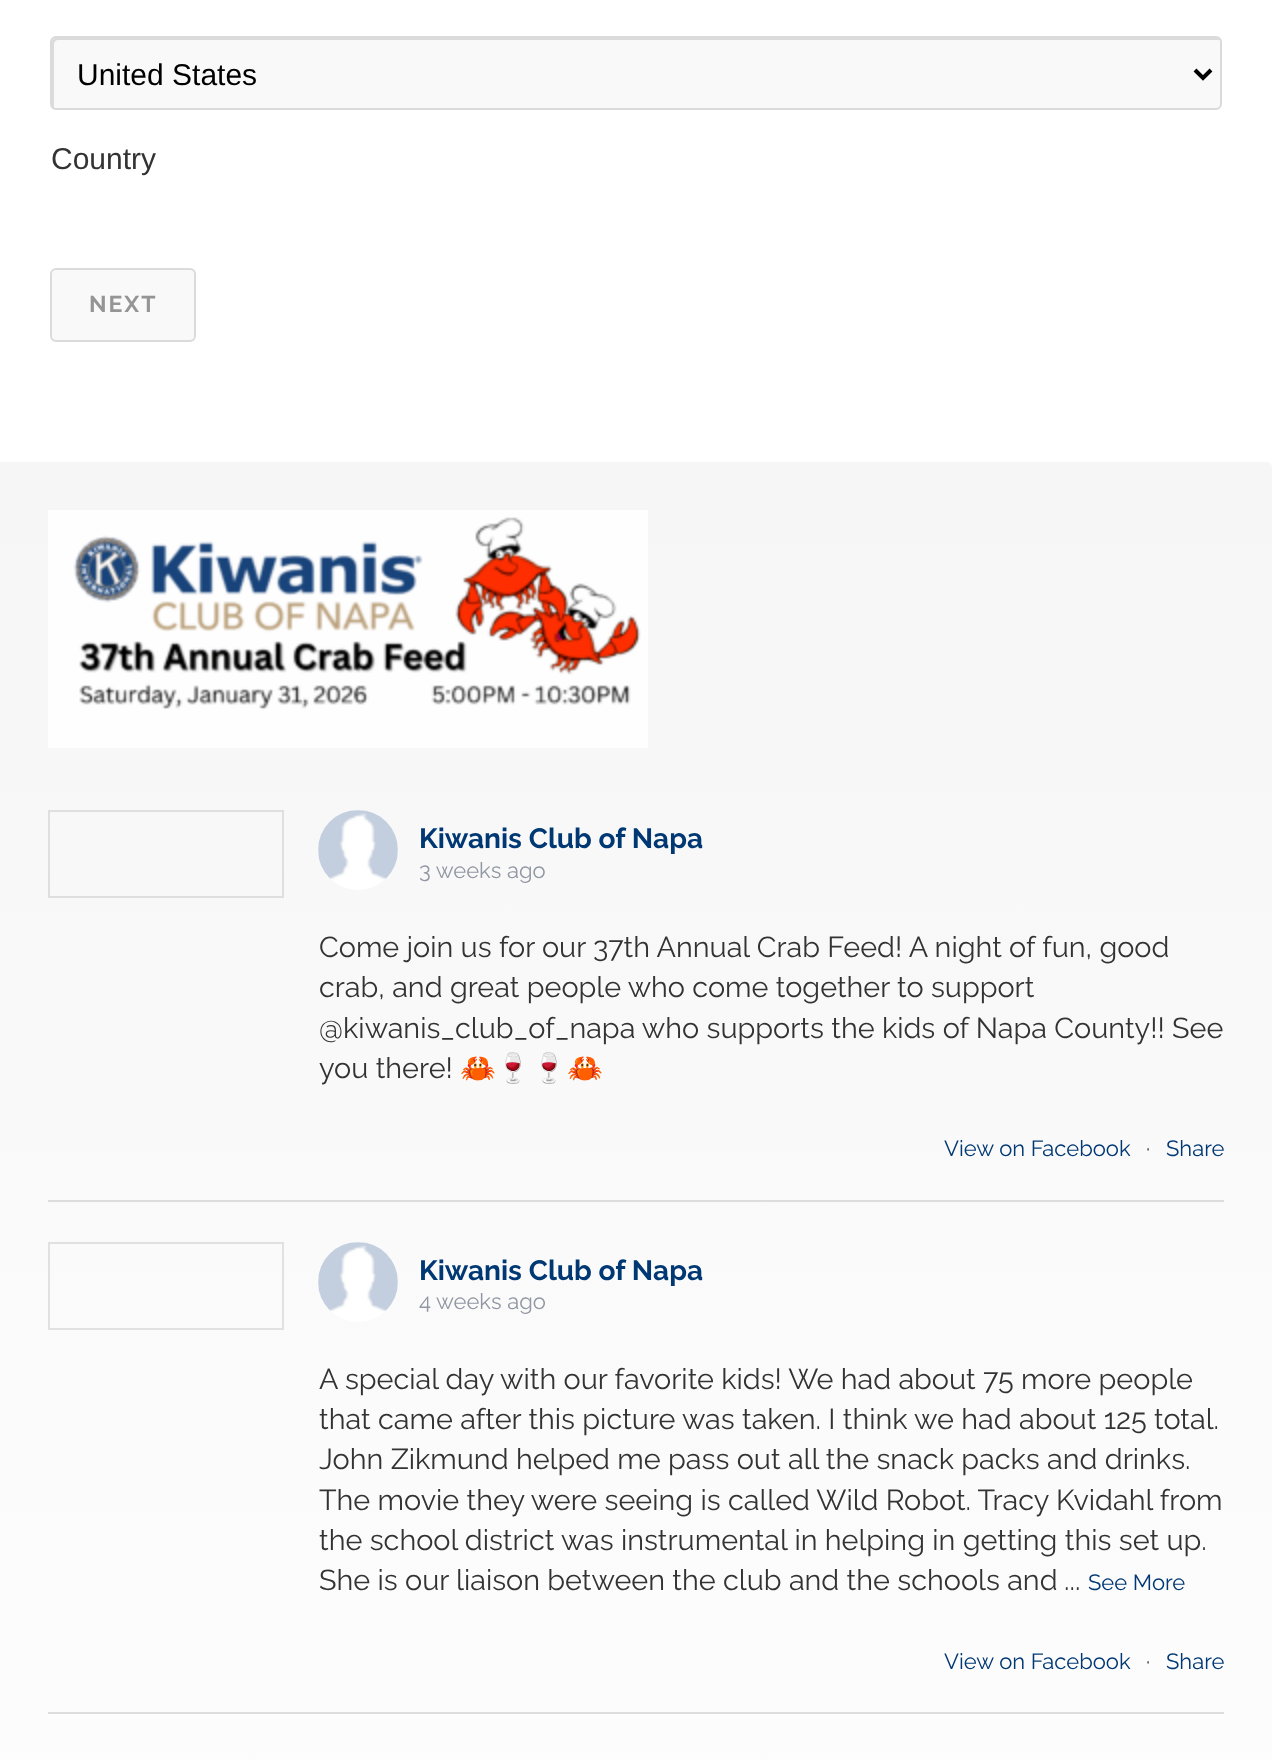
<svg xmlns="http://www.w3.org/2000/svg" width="1272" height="1760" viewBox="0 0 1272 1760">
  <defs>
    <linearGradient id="g1" gradientUnits="userSpaceOnUse" x1="636" y1="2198" x2="636" y2="462"><stop offset="0" stop-color="#ffffff"/><stop offset="1" stop-color="#f6f6f6"/></linearGradient>
  </defs>
  <rect width="100%" height="100%" fill="#ffffff"/>
  <rect x="50" y="36" width="1172" height="74" rx="6" fill="#f9f9f9"/>
  <path d="M58 40H1218H1220C1219 39 1218 38 1216 38H56C54 38 52 40 52 42V104C52 106 53 107 54 108V106V44C54 42 56 40 58 40Z" fill="#dbdbdb"/>
  <rect x="51" y="37" width="1170" height="72" rx="5" fill="none" stroke="#000000" stroke-opacity="0.12" stroke-width="2"/>
  <path d="M1195 70L1203 78L1211 70" fill="none" stroke="#000000" stroke-width="4"/>
  <text x="77" y="85" font-family="Liberation Sans" font-size="30" fill="#000000">United States</text>
  <text x="51" y="169" font-family="Liberation Sans" font-size="30" fill="#333333">Country</text>
  <rect x="51" y="269" width="144" height="72" rx="5" fill="#f9f9f9" stroke="#dbdbdb" stroke-width="2"/>
  <text x="89" y="312" font-family="Raleway" font-size="23" font-weight="bold" letter-spacing="2" fill="#959595">NEXT</text>
  <path d="M0 462H1266C1269.5 462 1272 464.5 1272 468V1760C1272 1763.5 1269.5 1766 1266 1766H0Z" fill="url(#g1)"/>
  <image x="48" y="510" width="600" height="238" href="img1.png"/>
  <rect x="48" y="1200" width="1176" height="2" fill="#dddddd"/>
  <rect x="49" y="811" width="234" height="86" fill="none" stroke="#dfdfdf" stroke-width="2"/>
  <image x="318" y="810" width="80" height="80" href="img2.png"/>
  <text x="419" y="848" font-family="Raleway" font-size="28" font-weight="bold" fill="#003874">Kiwanis Club of Napa</text>
  <text x="419" y="878" font-family="Raleway" font-size="22" fill="#9197a3">3 weeks ago</text>
  <text x="319" y="957" font-family="Raleway" font-size="28.8" fill="#333333">Come join us for our 37th Annual Crab Feed! A night of fun, good</text>
  <text x="319" y="997" font-family="Raleway" font-size="28.8" fill="#333333">crab, and great people who come together to support</text>
  <text x="319" y="1038" font-family="Raleway" font-size="28.8" fill="#333333">@kiwanis_club_of_napa who supports the kids of Napa County!! See</text>
  <text x="319" y="1078" font-family="Raleway" font-size="28.8" fill="#333333">you there!</text>
  <text x="460" y="1078" font-family="Noto Color Emoji" font-size="28.8" fill="#333333">🦀🍷🍷🦀</text>
  <text x="944" y="1156" font-family="Raleway" font-size="22" fill="#003874">View on Facebook</text>
  <text x="1146" y="1156" font-family="Raleway" font-size="22" fill="#333333">·</text>
  <text x="1166" y="1156" font-family="Raleway" font-size="22" fill="#003874">Share</text>
  <rect x="48" y="1712" width="1176" height="2" fill="#dddddd"/>
  <rect x="49" y="1243" width="234" height="86" fill="none" stroke="#e1e1e1" stroke-width="2"/>
  <image x="318" y="1242" width="80" height="80" href="img3.png"/>
  <text x="419" y="1280" font-family="Raleway" font-size="28" font-weight="bold" fill="#003874">Kiwanis Club of Napa</text>
  <text x="419" y="1309" font-family="Raleway" font-size="22" fill="#9197a3">4 weeks ago</text>
  <text x="319" y="1389" font-family="Raleway" font-size="28.8" fill="#333333">A special day with our favorite kids! We had about 75 more people</text>
  <text x="319" y="1429" font-family="Raleway" font-size="28.8" fill="#333333">that came after this picture was taken. I think we had about 125 total.</text>
  <text x="319" y="1469" font-family="Raleway" font-size="28.8" fill="#333333">John Zikmund helped me pass out all the snack packs and drinks.</text>
  <text x="319" y="1510" font-family="Raleway" font-size="28.8" fill="#333333">The movie they were seeing is called Wild Robot. Tracy Kvidahl from</text>
  <text x="319" y="1550" font-family="Raleway" font-size="28.8" fill="#333333">the school district was instrumental in helping in getting this set up.</text>
  <text x="319" y="1590" font-family="Raleway" font-size="28.8" fill="#333333">She is our liaison between the club and the schools and</text>
  <text x="1064" y="1590" font-family="Raleway" font-size="28.8" fill="#333333">...</text>
  <text x="1088" y="1590" font-family="Raleway" font-size="22" fill="#003874">See More</text>
  <text x="944" y="1669" font-family="Raleway" font-size="22" fill="#003874">View on Facebook</text>
  <text x="1146" y="1669" font-family="Raleway" font-size="22" fill="#333333">·</text>
  <text x="1166" y="1669" font-family="Raleway" font-size="22" fill="#003874">Share</text>
</svg>
